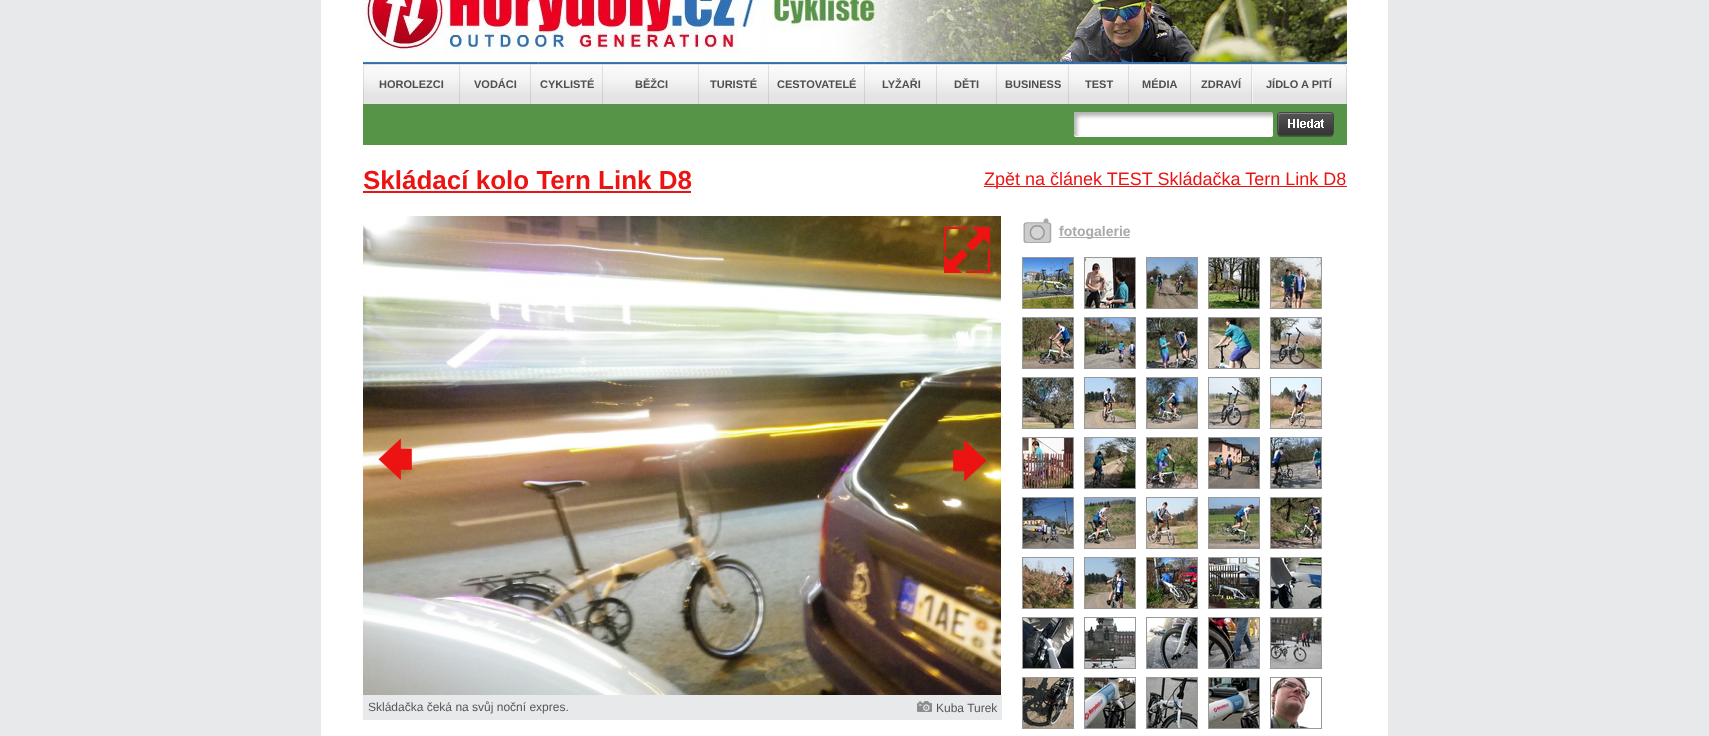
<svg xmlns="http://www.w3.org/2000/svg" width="1709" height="736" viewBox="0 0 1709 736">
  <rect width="100%" height="100%" fill="#e7e9ea"/>
  <rect x="321" y="0" width="1067" height="736" fill="#ffffff"/>
  <image x="363" y="0" width="984" height="64" href="img1.png"/>
  <image x="363" y="64" width="983" height="40" href="img2.png"/>
  <image x="363" y="65" width="94" height="39" href="img3.png"/>
  <text x="379" y="88" font-family="Liberation Sans" font-size="11" font-weight="bold" fill="#504f4f">HOROLEZCI</text>
  <image x="459" y="65" width="1" height="39" href="img4.png"/>
  <image x="460" y="65" width="70" height="39" href="img5.png"/>
  <text x="474" y="88" font-family="Liberation Sans" font-size="11" font-weight="bold" fill="#504f4f">VODÁCI</text>
  <image x="530" y="65" width="1" height="39" href="img4.png"/>
  <image x="531" y="65" width="71" height="39" href="img6.png"/>
  <text x="540" y="88" font-family="Liberation Sans" font-size="11" font-weight="bold" fill="#504f4f">CYKLISTÉ</text>
  <image x="602" y="65" width="1" height="39" href="img4.png"/>
  <image x="603" y="65" width="95" height="39" href="img7.png"/>
  <text x="635" y="88" font-family="Liberation Sans" font-size="11" font-weight="bold" fill="#504f4f">BĚŽCI</text>
  <image x="698" y="65" width="1" height="39" href="img4.png"/>
  <image x="699" y="65" width="69" height="39" href="img8.png"/>
  <text x="710" y="88" font-family="Liberation Sans" font-size="11" font-weight="bold" fill="#504f4f">TURISTÉ</text>
  <image x="768" y="65" width="1" height="39" href="img4.png"/>
  <image x="769" y="65" width="95" height="39" href="img7.png"/>
  <text x="777" y="88" font-family="Liberation Sans" font-size="11" font-weight="bold" fill="#504f4f">CESTOVATELÉ</text>
  <image x="864" y="65" width="1" height="39" href="img4.png"/>
  <image x="865" y="65" width="71" height="39" href="img6.png"/>
  <text x="882" y="88" font-family="Liberation Sans" font-size="11" font-weight="bold" fill="#504f4f">LYŽAŘI</text>
  <image x="936" y="65" width="1" height="39" href="img4.png"/>
  <image x="937" y="65" width="59" height="39" href="img9.png"/>
  <text x="954" y="88" font-family="Liberation Sans" font-size="11" font-weight="bold" fill="#504f4f">DĚTI</text>
  <image x="996" y="65" width="1" height="39" href="img4.png"/>
  <image x="997" y="65" width="71" height="39" href="img6.png"/>
  <text x="1005" y="88" font-family="Liberation Sans" font-size="11" font-weight="bold" fill="#504f4f">BUSINESS</text>
  <image x="1068" y="65" width="1" height="39" href="img4.png"/>
  <image x="1069" y="65" width="59" height="39" href="img9.png"/>
  <text x="1085" y="88" font-family="Liberation Sans" font-size="11" font-weight="bold" fill="#504f4f">TEST</text>
  <image x="1128" y="65" width="1" height="39" href="img4.png"/>
  <image x="1129" y="65" width="61" height="39" href="img10.png"/>
  <text x="1142" y="88" font-family="Liberation Sans" font-size="11" font-weight="bold" fill="#504f4f">MÉDIA</text>
  <image x="1190" y="65" width="1" height="39" href="img4.png"/>
  <image x="1191" y="65" width="59" height="39" href="img9.png"/>
  <text x="1201" y="88" font-family="Liberation Sans" font-size="11" font-weight="bold" fill="#504f4f">ZDRAVÍ</text>
  <image x="1251" y="65" width="96" height="39" href="img11.png"/>
  <text x="1266" y="88" font-family="Liberation Sans" font-size="11" font-weight="bold" fill="#504f4f">JÍDLO A PITÍ</text>
  <rect x="363" y="104" width="984" height="41" fill="#569447"/>
  <image x="1074" y="112" width="199" height="25" href="img12.png"/>
  <image x="1277" y="112" width="57" height="25" href="img13.png"/>
  <text x="363" y="189" font-family="Liberation Sans" font-size="26" font-weight="bold" fill="#ec1313">Skládací kolo Tern Link D8</text>
  <rect x="363" y="191" width="328" height="2" fill="#ec1313"/>
  <rect x="984" y="186" width="363" height="1" fill="#ec1313"/>
  <text x="984" y="185" font-family="Liberation Sans" font-size="18" fill="#ec1313">Zpět na článek TEST Skládačka Tern Link D8</text>
  <image x="1023" y="218" width="29" height="25" href="img14.png"/>
  <rect x="1059" y="237" width="71" height="1" fill="#aaaaaa"/>
  <text x="1059" y="236" font-family="Liberation Sans" font-size="14" font-weight="bold" fill="#aaaaaa">fotogalerie</text>
  <rect x="1022.5" y="257.5" width="51" height="51" fill="none" stroke="#999999"/>
  <image x="1023" y="258" width="50" height="50" href="img15.png"/>
  <rect x="1084.5" y="257.5" width="51" height="51" fill="none" stroke="#999999"/>
  <image x="1085" y="258" width="50" height="50" href="img16.png"/>
  <rect x="1146.5" y="257.5" width="51" height="51" fill="none" stroke="#999999"/>
  <image x="1147" y="258" width="50" height="50" href="img17.png"/>
  <rect x="1208.5" y="257.5" width="51" height="51" fill="none" stroke="#999999"/>
  <image x="1209" y="258" width="50" height="50" href="img18.png"/>
  <rect x="1270.5" y="257.5" width="51" height="51" fill="none" stroke="#999999"/>
  <image x="1271" y="258" width="50" height="50" href="img19.png"/>
  <rect x="1022.5" y="317.5" width="51" height="51" fill="none" stroke="#999999"/>
  <image x="1023" y="318" width="50" height="50" href="img20.png"/>
  <rect x="1084.5" y="317.5" width="51" height="51" fill="none" stroke="#999999"/>
  <image x="1085" y="318" width="50" height="50" href="img21.png"/>
  <rect x="1146.5" y="317.5" width="51" height="51" fill="none" stroke="#999999"/>
  <image x="1147" y="318" width="50" height="50" href="img22.png"/>
  <rect x="1208.5" y="317.5" width="51" height="51" fill="none" stroke="#999999"/>
  <image x="1209" y="318" width="50" height="50" href="img23.png"/>
  <rect x="1270.5" y="317.5" width="51" height="51" fill="none" stroke="#999999"/>
  <image x="1271" y="318" width="50" height="50" href="img24.png"/>
  <rect x="1022.5" y="377.5" width="51" height="51" fill="none" stroke="#999999"/>
  <image x="1023" y="378" width="50" height="50" href="img25.png"/>
  <rect x="1084.5" y="377.5" width="51" height="51" fill="none" stroke="#999999"/>
  <image x="1085" y="378" width="50" height="50" href="img26.png"/>
  <rect x="1146.5" y="377.5" width="51" height="51" fill="none" stroke="#999999"/>
  <image x="1147" y="378" width="50" height="50" href="img27.png"/>
  <rect x="1208.5" y="377.5" width="51" height="51" fill="none" stroke="#999999"/>
  <image x="1209" y="378" width="50" height="50" href="img28.png"/>
  <rect x="1270.5" y="377.5" width="51" height="51" fill="none" stroke="#999999"/>
  <image x="1271" y="378" width="50" height="50" href="img29.png"/>
  <rect x="1022.5" y="437.5" width="51" height="51" fill="none" stroke="#999999"/>
  <image x="1023" y="438" width="50" height="50" href="img30.png"/>
  <rect x="1084.5" y="437.5" width="51" height="51" fill="none" stroke="#999999"/>
  <image x="1085" y="438" width="50" height="50" href="img31.png"/>
  <rect x="1146.5" y="437.5" width="51" height="51" fill="none" stroke="#999999"/>
  <image x="1147" y="438" width="50" height="50" href="img32.png"/>
  <rect x="1208.5" y="437.5" width="51" height="51" fill="none" stroke="#999999"/>
  <image x="1209" y="438" width="50" height="50" href="img33.png"/>
  <rect x="1270.5" y="437.5" width="51" height="51" fill="none" stroke="#999999"/>
  <image x="1271" y="438" width="50" height="50" href="img34.png"/>
  <rect x="1022.5" y="497.5" width="51" height="51" fill="none" stroke="#999999"/>
  <image x="1023" y="498" width="50" height="50" href="img35.png"/>
  <rect x="1084.5" y="497.5" width="51" height="51" fill="none" stroke="#999999"/>
  <image x="1085" y="498" width="50" height="50" href="img36.png"/>
  <rect x="1146.5" y="497.5" width="51" height="51" fill="none" stroke="#999999"/>
  <image x="1147" y="498" width="50" height="50" href="img37.png"/>
  <rect x="1208.5" y="497.5" width="51" height="51" fill="none" stroke="#999999"/>
  <image x="1209" y="498" width="50" height="50" href="img38.png"/>
  <rect x="1270.5" y="497.5" width="51" height="51" fill="none" stroke="#999999"/>
  <image x="1271" y="498" width="50" height="50" href="img39.png"/>
  <rect x="1022.5" y="557.5" width="51" height="51" fill="none" stroke="#999999"/>
  <image x="1023" y="558" width="50" height="50" href="img40.png"/>
  <rect x="1084.5" y="557.5" width="51" height="51" fill="none" stroke="#999999"/>
  <image x="1085" y="558" width="50" height="50" href="img41.png"/>
  <rect x="1146.5" y="557.5" width="51" height="51" fill="none" stroke="#999999"/>
  <image x="1147" y="558" width="50" height="50" href="img42.png"/>
  <rect x="1208.5" y="557.5" width="51" height="51" fill="none" stroke="#999999"/>
  <image x="1209" y="558" width="50" height="50" href="img43.png"/>
  <rect x="1270.5" y="557.5" width="51" height="51" fill="none" stroke="#999999"/>
  <image x="1271" y="558" width="50" height="50" href="img44.png"/>
  <rect x="1022.5" y="617.5" width="51" height="51" fill="none" stroke="#999999"/>
  <image x="1023" y="618" width="50" height="50" href="img45.png"/>
  <rect x="1084.5" y="617.5" width="51" height="51" fill="none" stroke="#999999"/>
  <image x="1085" y="618" width="50" height="50" href="img46.png"/>
  <rect x="1146.5" y="617.5" width="51" height="51" fill="none" stroke="#999999"/>
  <image x="1147" y="618" width="50" height="50" href="img47.png"/>
  <rect x="1208.5" y="617.5" width="51" height="51" fill="none" stroke="#999999"/>
  <image x="1209" y="618" width="50" height="50" href="img48.png"/>
  <rect x="1270.5" y="617.5" width="51" height="51" fill="none" stroke="#999999"/>
  <image x="1271" y="618" width="50" height="50" href="img49.png"/>
  <rect x="1022.5" y="677.5" width="51" height="51" fill="none" stroke="#999999"/>
  <image x="1023" y="678" width="50" height="50" href="img50.png"/>
  <rect x="1084.5" y="677.5" width="51" height="51" fill="none" stroke="#999999"/>
  <image x="1085" y="678" width="50" height="50" href="img51.png"/>
  <rect x="1146.5" y="677.5" width="51" height="51" fill="none" stroke="#999999"/>
  <image x="1147" y="678" width="50" height="50" href="img52.png"/>
  <rect x="1208.5" y="677.5" width="51" height="51" fill="none" stroke="#999999"/>
  <image x="1209" y="678" width="50" height="50" href="img53.png"/>
  <rect x="1270.5" y="677.5" width="51" height="51" fill="none" stroke="#999999"/>
  <image x="1271" y="678" width="39" height="50" href="img54.png"/>
  <image x="363" y="216" width="638" height="479" href="img55.png"/>
  <image x="944" y="227" width="47" height="46" href="img56.png"/>
  <image x="378" y="438" width="35" height="42" href="img57.png"/>
  <image x="952" y="440" width="35" height="42" href="img58.png"/>
  <rect x="363" y="695" width="639" height="25" fill="#e8e9eb"/>
  <text x="368" y="711" font-family="Liberation Sans" font-size="12" fill="#555658">Skládačka čeká na svůj noční expres.</text>
  <image x="917" y="700" width="15" height="12" href="img59.png"/>
  <text x="936" y="712" font-family="Liberation Sans" font-size="12" fill="#555658">Kuba Turek</text>
</svg>
